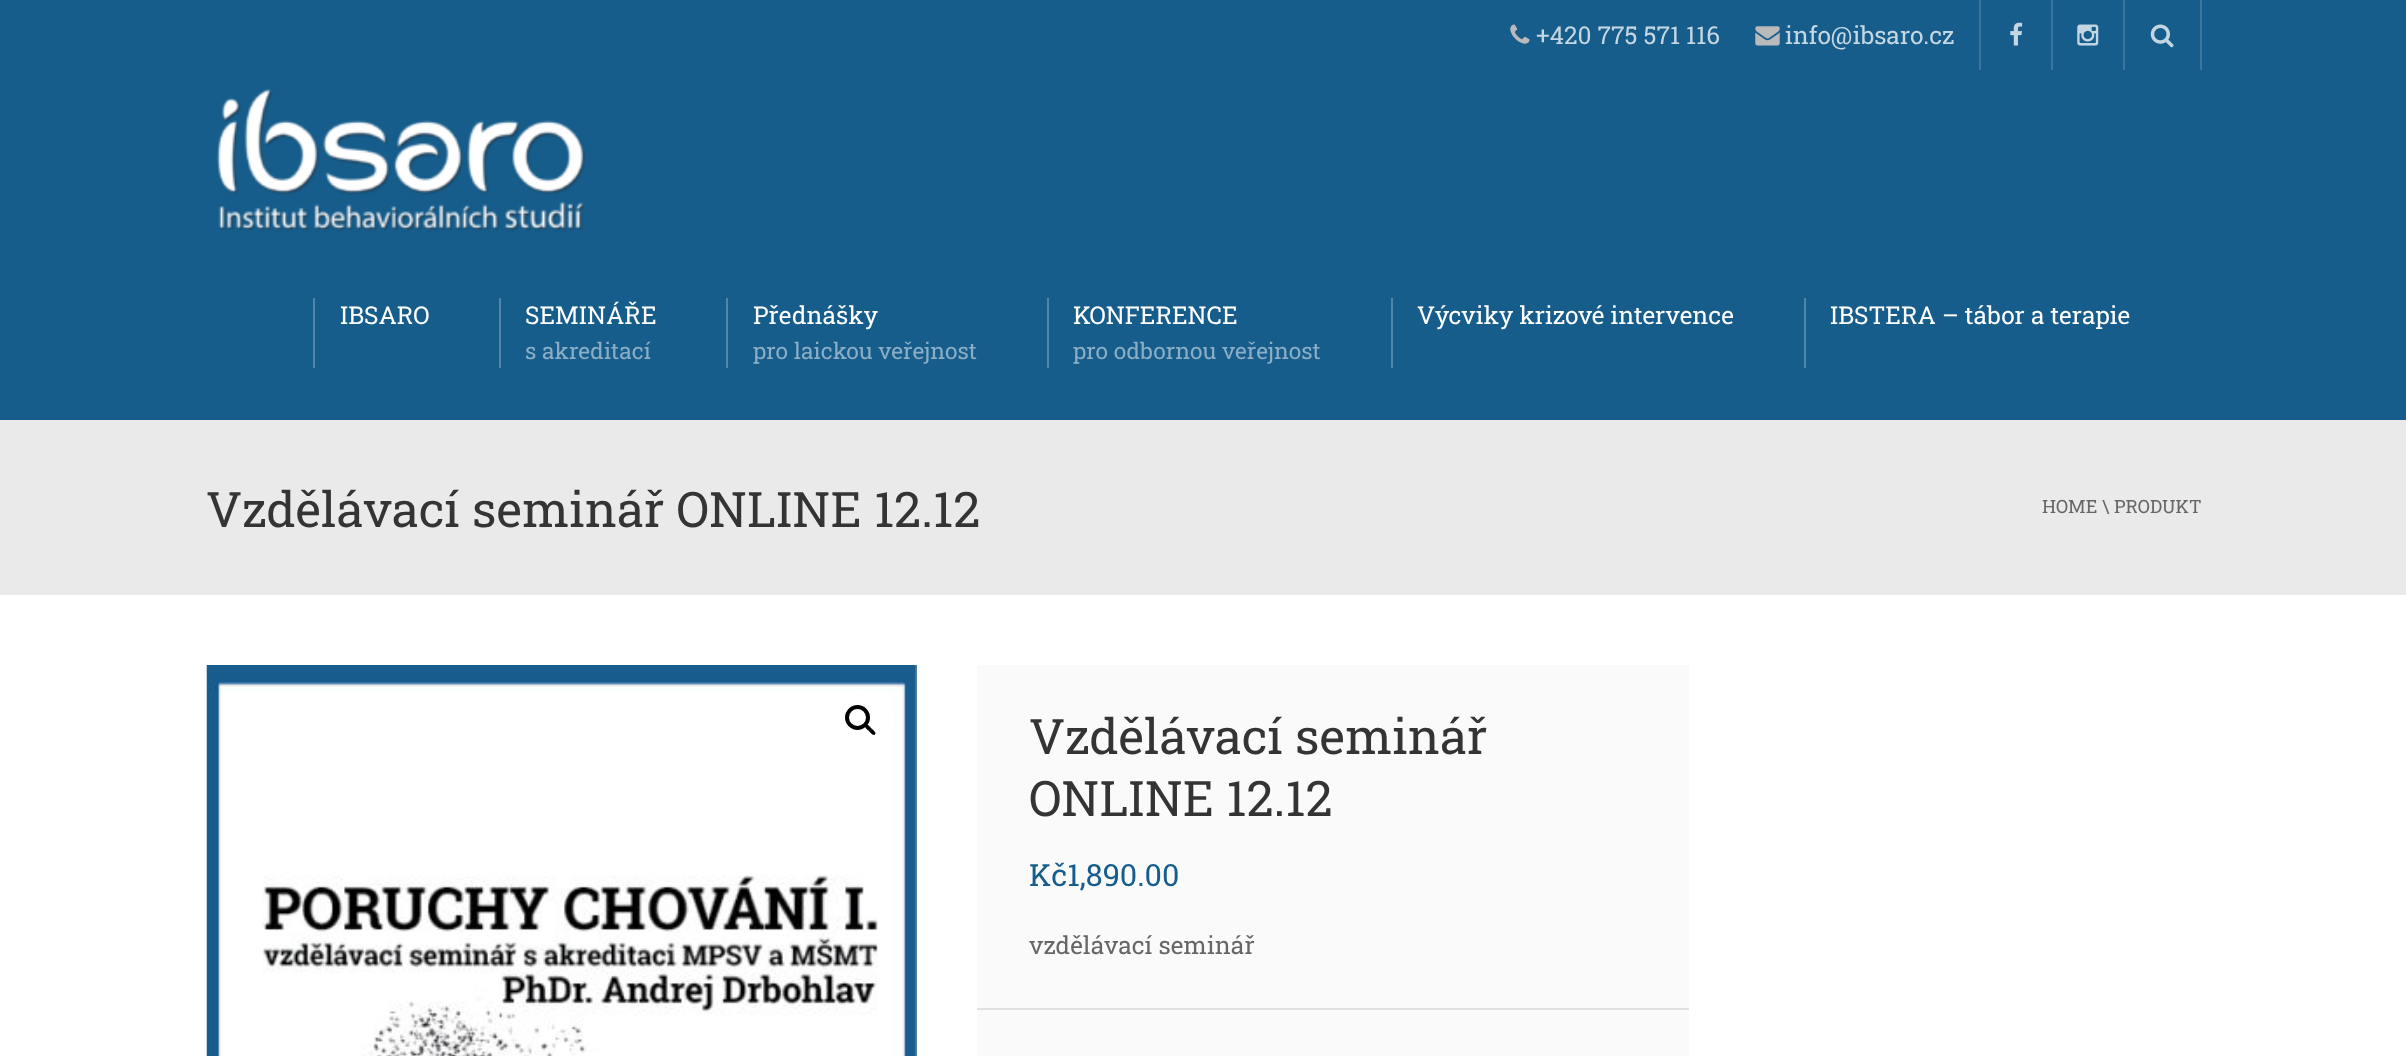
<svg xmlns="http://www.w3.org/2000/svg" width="2406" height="1056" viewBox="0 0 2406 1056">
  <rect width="100%" height="100%" fill="#ffffff"/>
  <rect x="0" y="0" width="2406" height="420" fill="#165d8c"/>
  <image x="1510" y="24" width="20" height="20" href="img1.png"/>
  <text x="1536" y="44" font-family="Roboto Slab" font-size="24.5" fill="#c5d7e2">+420 775 571 116</text>
  <image x="1755" y="26" width="25" height="20" href="img2.png"/>
  <text x="1785" y="44" font-family="Roboto Slab" font-size="24.5" fill="#c5d7e2">info@ibsaro.cz</text>
  <rect x="1979" y="0" width="2" height="70" fill="#39759d"/>
  <image x="2010" y="22" width="13" height="24" href="img3.png"/>
  <rect x="2051" y="0" width="2" height="70" fill="#39759d"/>
  <image x="2077" y="24" width="22" height="22" href="img4.png"/>
  <rect x="2200" y="0" width="2" height="70" fill="#39759d"/>
  <rect x="2123" y="0" width="2" height="70" fill="#39759d"/>
  <image x="2150" y="24" width="24" height="24" href="img5.png"/>
  <image x="216" y="89" width="369" height="143" href="img6.png"/>
  <rect x="313" y="298" width="2" height="70" fill="#5086a9"/>
  <text x="340" y="324" font-family="Roboto Slab" font-size="24.5" fill="#ffffff">IBSARO</text>
  <rect x="499" y="298" width="2" height="70" fill="#5086a9"/>
  <text x="525" y="324" font-family="Roboto Slab" font-size="24.5" fill="#ffffff">SEMINÁŘE</text>
  <text x="525" y="359" font-family="Roboto Slab" font-size="22.75" fill="#8baec6">s akreditací</text>
  <rect x="726" y="298" width="2" height="70" fill="#5086a9"/>
  <text x="753" y="324" font-family="Roboto Slab" font-size="24.5" fill="#ffffff">Přednášky</text>
  <text x="753" y="359" font-family="Roboto Slab" font-size="22.75" fill="#8baec6">pro laickou veřejnost</text>
  <rect x="1047" y="298" width="2" height="70" fill="#5086a9"/>
  <text x="1073" y="324" font-family="Roboto Slab" font-size="24.5" fill="#ffffff">KONFERENCE</text>
  <text x="1073" y="359" font-family="Roboto Slab" font-size="22.75" fill="#8baec6">pro odbornou veřejnost</text>
  <rect x="1391" y="298" width="2" height="70" fill="#5086a9"/>
  <text x="1417" y="324" font-family="Roboto Slab" font-size="24.5" fill="#ffffff">Výcviky krizové intervence</text>
  <rect x="1804" y="298" width="2" height="70" fill="#5086a9"/>
  <text x="1830" y="324" font-family="Roboto Slab" font-size="24.5" fill="#ffffff">IBSTERA – tábor a terapie</text>
  <rect x="0" y="420" width="2406" height="175" fill="#eaeaea"/>
  <text x="206" y="527" font-family="Roboto Slab" font-size="49" fill="#343434">Vzdělávací seminář ONLINE 12.12</text>
  <text x="2042" y="513" font-family="Roboto Slab" font-size="18.25" fill="#666666">HOME \ PRODUKT</text>
  <image x="206" y="665" width="711" height="391" href="img7.png"/>
  <circle cx="861.5" cy="721.5" r="31.5" fill="#ffffff"/>
  <circle cx="857.5" cy="717.5" r="10.5" fill="none" stroke="#000000" stroke-width="4"/>
  <path d="M865.5 725C867.5 723 870.5 727.5 871.5 728.5C872.5 729.5 877 732.5 875 734.5C873 736.5 870 732 869 731C868 730 863.5 727 865.5 725Z" fill="#000000"/>
  <rect x="977" y="665" width="712" height="391" fill="#fafafa"/>
  <text x="1029" y="754" font-family="Roboto Slab" font-size="49" fill="#343434">Vzdělávací seminář</text>
  <text x="1029" y="816" font-family="Roboto Slab" font-size="49" fill="#343434">ONLINE 12.12</text>
  <text x="1029" y="886" font-family="Roboto Slab" font-size="30.5" fill="#165d8c">Kč1,890.00</text>
  <text x="1029" y="954" font-family="Roboto Slab" font-size="24.5" fill="#666666">vzdělávací seminář</text>
  <rect x="977" y="1008" width="712" height="2" fill="#e1e1e1"/>
</svg>
